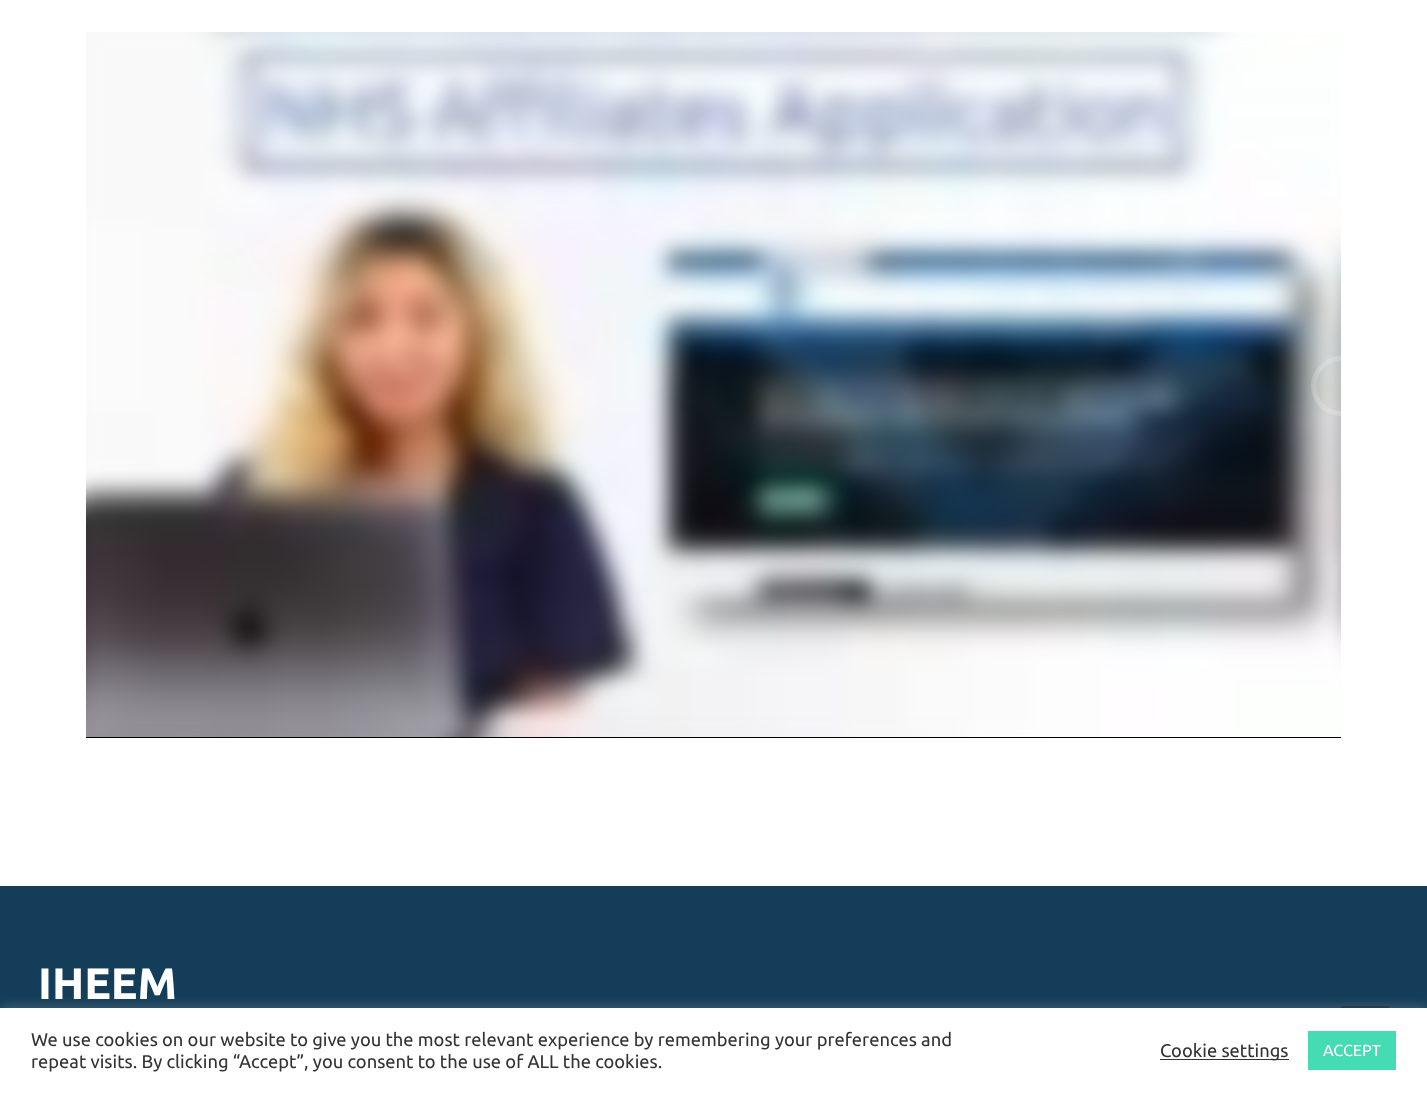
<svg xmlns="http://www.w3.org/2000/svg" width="1427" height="1093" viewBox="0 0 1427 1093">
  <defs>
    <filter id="blur1" x="-50%" y="-200%" width="200%" height="500%"><feGaussianBlur stdDeviation="6"/></filter>
  </defs>
  <rect width="100%" height="100%" fill="#ffffff"/>
  <rect x="86" y="737" width="1255" height="1" fill="#000000"/>
  <image x="86" y="32" width="1255" height="705" href="img1.png"/>
  <rect x="0" y="886" width="1427" height="122" fill="#133d59"/>
  <text x="38" y="999" font-family="Ubuntu" font-size="44" font-weight="bold" fill="#ffffff">IHEEM</text>
  <rect x="1340" y="1006" width="50" height="50" rx="4" fill="#0b2535"/>
  <rect x="0" y="1006" width="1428" height="87" fill="#acabab" fill-opacity="0.3" filter="url(#blur1)"/>
  <rect x="0" y="1008" width="1427" height="85" fill="#ffffff"/>
  <text x="31" y="1046" font-family="Ubuntu" font-size="18.33" fill="#333333">We use cookies on our website to give you the most relevant experience by remembering your preferences and</text>
  <text x="31" y="1068" font-family="Ubuntu" font-size="18.33" fill="#333333">repeat visits. By clicking “Accept”, you consent to the use of ALL the cookies.</text>
  <rect x="1160" y="1059" width="129" height="1" fill="#333333"/>
  <text x="1160" y="1057" font-family="Ubuntu" font-size="18.33" fill="#333333">Cookie settings</text>
  <rect x="1308" y="1031" width="88" height="39" fill="#45dbb3"/>
  <text x="1323" y="1056" font-family="Ubuntu" font-size="16" fill="#ffffff">ACCEPT</text>
</svg>
